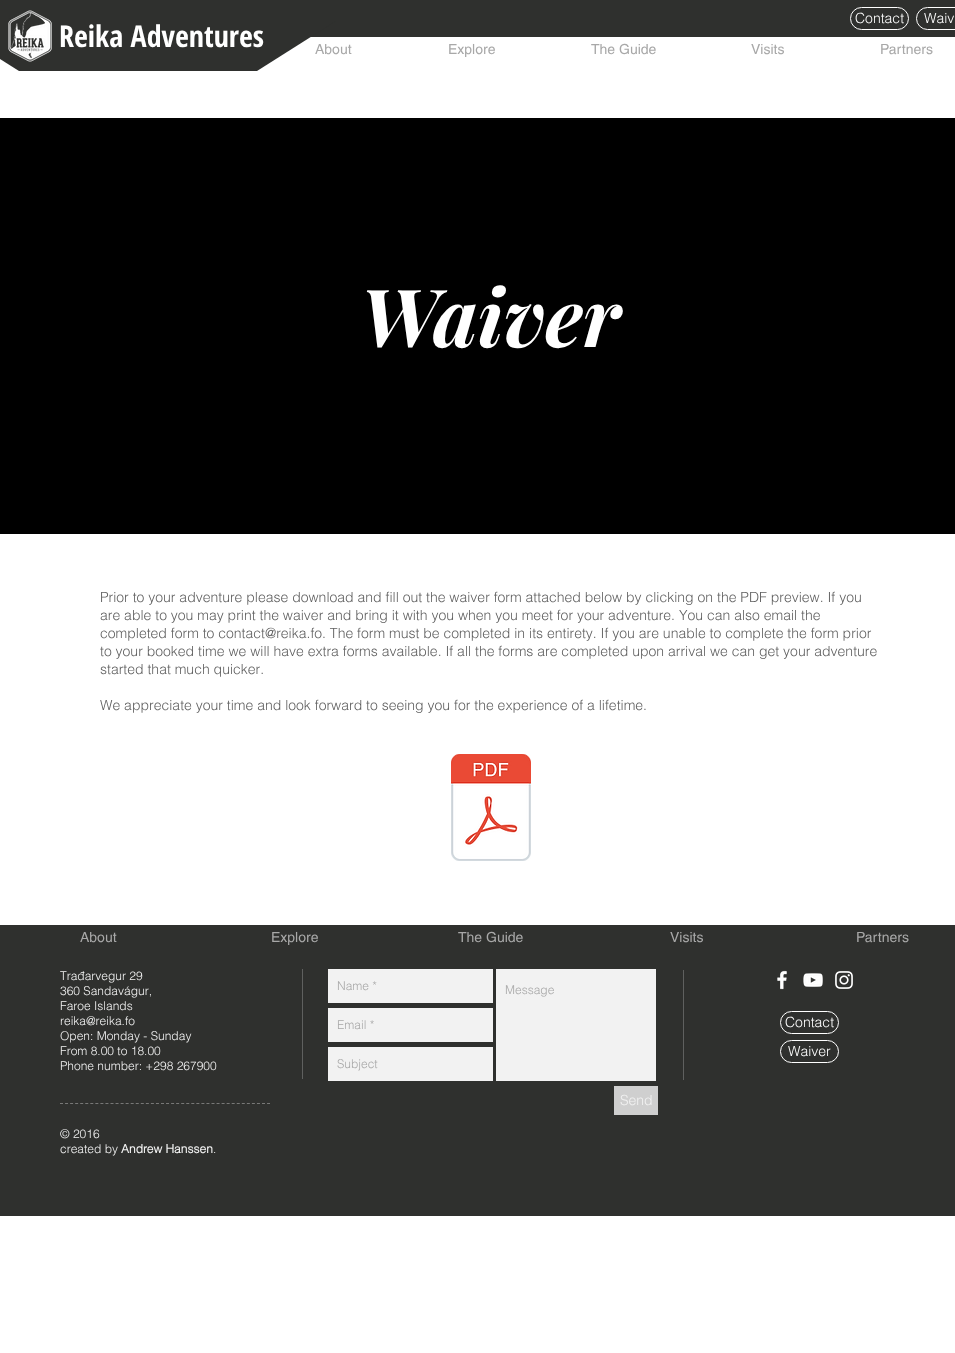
<svg xmlns="http://www.w3.org/2000/svg" width="955" height="1353" viewBox="0 0 955 1353">
  <rect width="100%" height="100%" fill="#ffffff"/>
  <rect x="0" y="0" width="955" height="37" fill="#2f302e"/>
  <rect x="850.5" y="7.5" width="58" height="22" rx="11" fill="none" stroke="#ffffff"/>
  <text x="855" y="23" font-family="helvetica" font-size="14" font-weight="300" fill="#ffffff">Contact</text>
  <rect x="916.5" y="7.5" width="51" height="22" rx="11" fill="none" stroke="#ffffff"/>
  <text x="924" y="23" font-family="helvetica" font-size="14" font-weight="300" fill="#ffffff">Waiv</text>
  <text x="315" y="54" font-family="helvetica" font-size="14" fill="#a8a8a8">About</text>
  <path d="M-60 21H336L257 71H19Z" fill="#2f302e"/>
  <image x="8" y="10" width="44" height="52" href="img1.png"/>
  <text x="59" y="47" font-family="Open Sans Condensed" font-size="30" font-weight="bold" fill="#ffffff">Reika Adventures</text>
  <text x="448" y="54" font-family="helvetica" font-size="14" fill="#a8a8a8">Explore</text>
  <text x="591" y="54" font-family="helvetica" font-size="14" fill="#a8a8a8">The Guide</text>
  <text x="751" y="54" font-family="helvetica" font-size="14" fill="#a8a8a8">Visits</text>
  <text x="880" y="54" font-family="helvetica" font-size="14" fill="#a8a8a8">Partners</text>
  <rect x="0" y="118" width="955" height="416" fill="#000000"/>
  <text x="360" y="347" font-family="Playfair Display" font-size="80" font-weight="bold" font-style="italic" fill="#ffffff">Waiver</text>
  <text x="100" y="602" font-family="helvetica" font-size="14" font-weight="300" fill="#606060">Prior to your adventure please download and fill out the waiver form attached below by clicking on the PDF preview. If you</text>
  <text x="100" y="620" font-family="helvetica" font-size="14" font-weight="300" fill="#606060">are able to you may print the waiver and bring it with you when you meet for your adventure. You can also email the</text>
  <text x="100" y="638" font-family="helvetica" font-size="14" font-weight="300" fill="#606060">completed form to contact@reika.fo. The form must be completed in its entirety. If you are unable to complete the form prior</text>
  <text x="100" y="656" font-family="helvetica" font-size="14" font-weight="300" fill="#606060">to your booked time we will have extra forms available. If all the forms are completed upon arrival we can get your adventure</text>
  <text x="100" y="674" font-family="helvetica" font-size="14" font-weight="300" fill="#606060">started that much quicker.</text>
  <text x="100" y="710" font-family="helvetica" font-size="14" font-weight="300" fill="#606060">We appreciate your time and look forward to seeing you for the experience of a lifetime.</text>
  <image x="451" y="754" width="80" height="107" href="img2.png"/>
  <rect x="0" y="925" width="955" height="291" fill="#2f302e"/>
  <text x="80" y="942" font-family="helvetica" font-size="14" fill="#a8a8a8">About</text>
  <text x="271" y="942" font-family="helvetica" font-size="14" fill="#a8a8a8">Explore</text>
  <text x="458" y="942" font-family="helvetica" font-size="14" fill="#a8a8a8">The Guide</text>
  <text x="670" y="942" font-family="helvetica" font-size="14" fill="#a8a8a8">Visits</text>
  <text x="856" y="942" font-family="helvetica" font-size="14" fill="#a8a8a8">Partners</text>
  <text x="60" y="980" font-family="helvetica" font-size="12" font-weight="300" fill="#f2f2f2">Trađarvegur 29</text>
  <text x="60" y="995" font-family="helvetica" font-size="12" font-weight="300" fill="#f2f2f2">360 Sandavágur,</text>
  <text x="60" y="1010" font-family="helvetica" font-size="12" font-weight="300" fill="#f2f2f2">Faroe Islands</text>
  <text x="60" y="1025" font-family="helvetica" font-size="12" font-weight="300" fill="#f2f2f2">reika@reika.fo</text>
  <text x="60" y="1040" font-family="helvetica" font-size="12" font-weight="300" fill="#f2f2f2">Open: Monday - Sunday</text>
  <text x="60" y="1055" font-family="helvetica" font-size="12" font-weight="300" fill="#f2f2f2">From 8.00 to 18.00</text>
  <text x="60" y="1070" font-family="helvetica" font-size="12" font-weight="300" fill="#f2f2f2">Phone number: +298 267900</text>
  <rect x="302" y="969" width="1" height="110" fill="#5f605f"/>
  <rect x="328" y="969" width="165" height="34" fill="#f2f2f2"/>
  <text x="337" y="990" font-family="helvetica" font-size="12" font-weight="300" fill="#a8a8a8">Name *</text>
  <rect x="496" y="969" width="160" height="112" fill="#f2f2f2"/>
  <text x="505" y="994" font-family="helvetica" font-size="12" font-weight="300" fill="#a8a8a8">Message</text>
  <rect x="328" y="1008" width="165" height="34" fill="#f2f2f2"/>
  <text x="337" y="1029" font-family="helvetica" font-size="12" font-weight="300" fill="#a8a8a8">Email *</text>
  <rect x="328" y="1047" width="165" height="34" fill="#f2f2f2"/>
  <text x="337" y="1068" font-family="helvetica" font-size="12" font-weight="300" fill="#a8a8a8">Subject</text>
  <rect x="614" y="1086" width="44" height="29" fill="#cfcfcf"/>
  <text x="620" y="1105" font-family="helvetica" font-size="14" font-weight="300" fill="#f2f2f2">Send</text>
  <rect x="683" y="970" width="1" height="110" fill="#5f605f"/>
  <image x="777" y="970" width="10" height="20" href="img3.png"/>
  <image x="803" y="973" width="20" height="14" href="img4.png"/>
  <image x="835" y="971" width="18" height="18" href="img5.png"/>
  <rect x="780.5" y="1011.5" width="58" height="22" rx="11" fill="none" stroke="#ffffff"/>
  <text x="785" y="1027" font-family="helvetica" font-size="14" font-weight="300" fill="#ffffff">Contact</text>
  <rect x="780.5" y="1040.5" width="58" height="22" rx="11" fill="none" stroke="#ffffff"/>
  <text x="788" y="1056" font-family="helvetica" font-size="14" font-weight="300" fill="#ffffff">Waiver</text>
  <path d="M60 1103.5H270" fill="none" stroke="#787877" stroke-dasharray="3 2.05"/>
  <text x="60" y="1138" font-family="helvetica" font-size="12" font-weight="300" fill="#f2f2f2">© 2016</text>
  <text x="60" y="1153" font-family="helvetica" font-size="12" font-weight="300" fill="#f2f2f2">created by</text>
  <text x="121" y="1153" font-family="helvetica" font-size="12" font-weight="bold" fill="#f2f2f2">Andrew Hanssen</text>
  <text x="213" y="1153" font-family="helvetica" font-size="12" font-weight="300" fill="#f2f2f2">.</text>
</svg>
